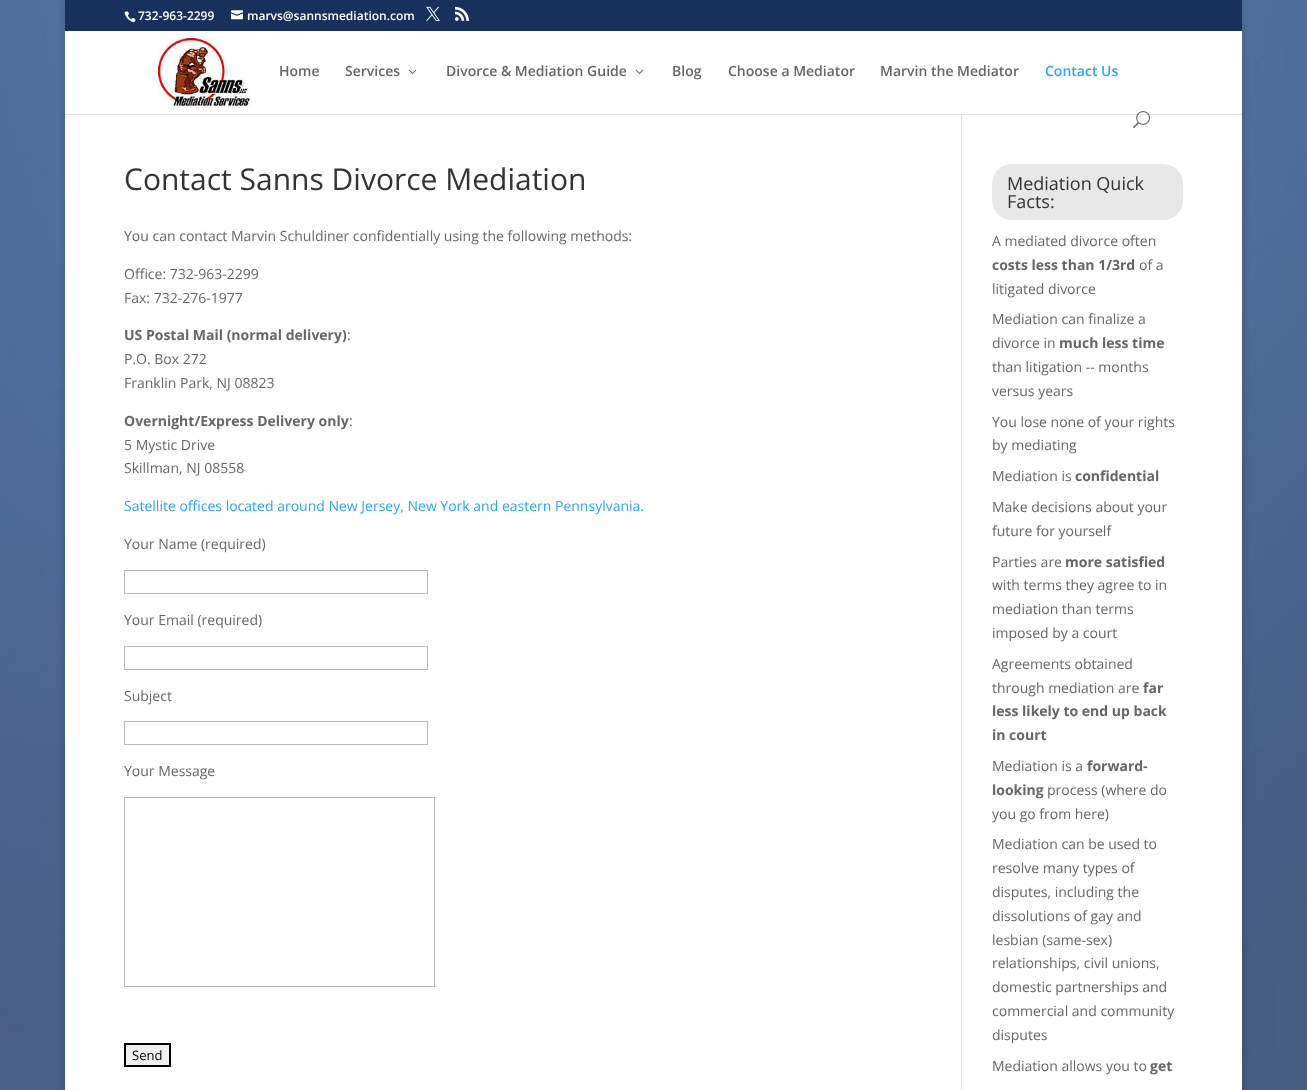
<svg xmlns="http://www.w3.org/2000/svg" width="1307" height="1090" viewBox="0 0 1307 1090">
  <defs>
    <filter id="blur1" x="-50%" y="-200%" width="200%" height="500%"><feGaussianBlur stdDeviation="5"/></filter>
  </defs>
  <rect width="100%" height="100%" fill="#ffffff"/>
  <image x="0" y="0" width="1307" height="1090" href="img1.png"/>
  <rect x="65" y="-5" width="1177" height="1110" fill="#000000" fill-opacity="0.2" filter="url(#blur1)"/>
  <rect x="65" y="0" width="1177" height="31" fill="#17315c"/>
  <image x="124" y="11" width="12" height="12" href="img2.png"/>
  <text x="138" y="20" font-family="Open Sans" font-size="12" font-weight="600" fill="#ffffff">732-963-2299</text>
  <image x="231" y="10" width="12" height="10" href="img3.png"/>
  <text x="247" y="20" font-family="Open Sans" font-size="12" font-weight="600" fill="#ffffff">marvs@sannsmediation.com</text>
  <image x="426" y="6" width="14" height="15" href="img4.png"/>
  <image x="455" y="6" width="14" height="15" href="img5.png"/>
  <rect x="65" y="114" width="1177" height="976" fill="#ffffff"/>
  <rect x="961" y="106" width="1" height="984" fill="#e2e2e2"/>
  <rect x="65" y="114" width="1177" height="1" fill="#000000" fill-opacity="0.1"/>
  <rect x="65" y="31" width="1177" height="83" fill="#ffffff"/>
  <image x="158" y="38" width="94" height="70" href="img6.png"/>
  <text x="279" y="76" font-family="Open Sans" font-size="14" font-weight="600" fill="#666666">Home</text>
  <text x="345" y="76" font-family="Open Sans" font-size="14" font-weight="600" fill="#666666">Services</text>
  <image x="408" y="69" width="9" height="5" href="img7.png"/>
  <text x="446" y="76" font-family="Open Sans" font-size="14" font-weight="600" fill="#666666">Divorce &amp; Mediation Guide</text>
  <image x="635" y="69" width="9" height="5" href="img7.png"/>
  <text x="672" y="76" font-family="Open Sans" font-size="14" font-weight="600" fill="#666666">Blog</text>
  <text x="728" y="76" font-family="Open Sans" font-size="14" font-weight="600" fill="#666666">Choose a Mediator</text>
  <text x="880" y="76" font-family="Open Sans" font-size="14" font-weight="600" fill="#666666">Marvin the Mediator</text>
  <text x="1045" y="76" font-family="Open Sans" font-size="14" font-weight="600" fill="#2ea3f2">Contact Us</text>
  <image x="1133" y="111" width="17" height="18" href="img8.png"/>
  <text x="124" y="190" font-family="Open Sans" font-size="30" fill="#333333">Contact Sanns Divorce Mediation</text>
  <text x="124" y="241" font-family="Open Sans" font-size="14" fill="#666666">You can contact Marvin Schuldiner confidentially using the following methods:</text>
  <text x="124" y="279" font-family="Open Sans" font-size="14" fill="#666666">Office: 732-963-2299</text>
  <text x="124" y="303" font-family="Open Sans" font-size="14" fill="#666666">Fax: 732-276-1977</text>
  <text x="124" y="340" font-family="Open Sans" font-size="14" font-weight="bold" fill="#666666">US Postal Mail (normal delivery)</text>
  <text x="347" y="340" font-family="Open Sans" font-size="14" fill="#666666">:</text>
  <text x="124" y="364" font-family="Open Sans" font-size="14" fill="#666666">P.O. Box 272</text>
  <text x="124" y="388" font-family="Open Sans" font-size="14" fill="#666666">Franklin Park, NJ 08823</text>
  <text x="124" y="426" font-family="Open Sans" font-size="14" font-weight="bold" fill="#666666">Overnight/Express Delivery only</text>
  <text x="349" y="426" font-family="Open Sans" font-size="14" fill="#666666">:</text>
  <text x="124" y="450" font-family="Open Sans" font-size="14" fill="#666666">5 Mystic Drive</text>
  <text x="124" y="473" font-family="Open Sans" font-size="14" fill="#666666">Skillman, NJ 08558</text>
  <text x="124" y="511" font-family="Open Sans" font-size="14" fill="#2ea3f2">Satellite offices located around New Jersey, New York and eastern Pennsylvania.</text>
  <text x="124" y="549" font-family="Open Sans" font-size="14" fill="#666666">Your Name (required)</text>
  <rect x="124.5" y="570.5" width="303" height="23" fill="none" stroke="#bbbbbb"/>
  <text x="124" y="625" font-family="Open Sans" font-size="14" fill="#666666">Your Email (required)</text>
  <rect x="124.5" y="646.5" width="303" height="23" fill="none" stroke="#bbbbbb"/>
  <text x="124" y="701" font-family="Open Sans" font-size="14" fill="#666666">Subject</text>
  <rect x="124.5" y="721.5" width="303" height="23" fill="none" stroke="#bbbbbb"/>
  <text x="124" y="776" font-family="Open Sans" font-size="14" fill="#666666">Your Message</text>
  <rect x="124.5" y="797.5" width="310" height="189" fill="none" stroke="#bbbbbb"/>
  <rect x="125" y="1044" width="45" height="22" fill="#efefef" stroke="#000000" stroke-width="2"/>
  <text x="132" y="1060" font-family="Open Sans" font-size="13" fill="#000000">Send</text>
  <rect x="992" y="164" width="191" height="56" rx="20" fill="#e8e8e8"/>
  <text x="1007" y="190" font-family="Open Sans" font-size="18" fill="#333333">Mediation Quick</text>
  <text x="1007" y="208" font-family="Open Sans" font-size="18" fill="#333333">Facts:</text>
  <text x="992" y="246" font-family="Open Sans" font-size="14" fill="#666666">A mediated divorce often</text>
  <text x="992" y="270" font-family="Open Sans" font-size="14" font-weight="bold" fill="#666666">costs less than 1/3rd</text>
  <text x="1139" y="270" font-family="Open Sans" font-size="14" fill="#666666">of a</text>
  <text x="992" y="294" font-family="Open Sans" font-size="14" fill="#666666">litigated divorce</text>
  <text x="992" y="324" font-family="Open Sans" font-size="14" fill="#666666">Mediation can finalize a</text>
  <text x="992" y="348" font-family="Open Sans" font-size="14" fill="#666666">divorce in</text>
  <text x="1059" y="348" font-family="Open Sans" font-size="14" font-weight="bold" fill="#666666">much less time</text>
  <text x="992" y="372" font-family="Open Sans" font-size="14" fill="#666666">than litigation -- months</text>
  <text x="992" y="396" font-family="Open Sans" font-size="14" fill="#666666">versus years</text>
  <text x="992" y="427" font-family="Open Sans" font-size="14" fill="#666666">You lose none of your rights</text>
  <text x="992" y="450" font-family="Open Sans" font-size="14" fill="#666666">by mediating</text>
  <text x="992" y="481" font-family="Open Sans" font-size="14" fill="#666666">Mediation is</text>
  <text x="1075" y="481" font-family="Open Sans" font-size="14" font-weight="bold" fill="#666666">confidential</text>
  <text x="992" y="512" font-family="Open Sans" font-size="14" fill="#666666">Make decisions about your</text>
  <text x="992" y="536" font-family="Open Sans" font-size="14" fill="#666666">future for yourself</text>
  <text x="992" y="567" font-family="Open Sans" font-size="14" fill="#666666">Parties are</text>
  <text x="1065" y="567" font-family="Open Sans" font-size="14" font-weight="bold" fill="#666666">more satisfied</text>
  <text x="992" y="590" font-family="Open Sans" font-size="14" fill="#666666">with terms they agree to in</text>
  <text x="992" y="614" font-family="Open Sans" font-size="14" fill="#666666">mediation than terms</text>
  <text x="992" y="638" font-family="Open Sans" font-size="14" fill="#666666">imposed by a court</text>
  <text x="992" y="669" font-family="Open Sans" font-size="14" fill="#666666">Agreements obtained</text>
  <text x="992" y="693" font-family="Open Sans" font-size="14" fill="#666666">through mediation are</text>
  <text x="1143" y="693" font-family="Open Sans" font-size="14" font-weight="bold" fill="#666666">far</text>
  <text x="992" y="716" font-family="Open Sans" font-size="14" font-weight="bold" fill="#666666">less likely to end up back</text>
  <text x="992" y="740" font-family="Open Sans" font-size="14" font-weight="bold" fill="#666666">in court</text>
  <text x="992" y="771" font-family="Open Sans" font-size="14" fill="#666666">Mediation is a</text>
  <text x="1087" y="771" font-family="Open Sans" font-size="14" font-weight="bold" fill="#666666">forward-</text>
  <text x="992" y="795" font-family="Open Sans" font-size="14" font-weight="bold" fill="#666666">looking</text>
  <text x="1047" y="795" font-family="Open Sans" font-size="14" fill="#666666">process (where do</text>
  <text x="992" y="819" font-family="Open Sans" font-size="14" fill="#666666">you go from here)</text>
  <text x="992" y="849" font-family="Open Sans" font-size="14" fill="#666666">Mediation can be used to</text>
  <text x="992" y="873" font-family="Open Sans" font-size="14" fill="#666666">resolve many types of</text>
  <text x="992" y="897" font-family="Open Sans" font-size="14" fill="#666666">disputes, including the</text>
  <text x="992" y="921" font-family="Open Sans" font-size="14" fill="#666666">dissolutions of gay and</text>
  <text x="992" y="945" font-family="Open Sans" font-size="14" fill="#666666">lesbian (same-sex)</text>
  <text x="992" y="968" font-family="Open Sans" font-size="14" fill="#666666">relationships, civil unions,</text>
  <text x="992" y="992" font-family="Open Sans" font-size="14" fill="#666666">domestic partnerships and</text>
  <text x="992" y="1016" font-family="Open Sans" font-size="14" fill="#666666">commercial and community</text>
  <text x="992" y="1040" font-family="Open Sans" font-size="14" fill="#666666">disputes</text>
  <text x="992" y="1071" font-family="Open Sans" font-size="14" fill="#666666">Mediation allows you to</text>
  <text x="1150" y="1071" font-family="Open Sans" font-size="14" font-weight="bold" fill="#666666">get</text>
</svg>
